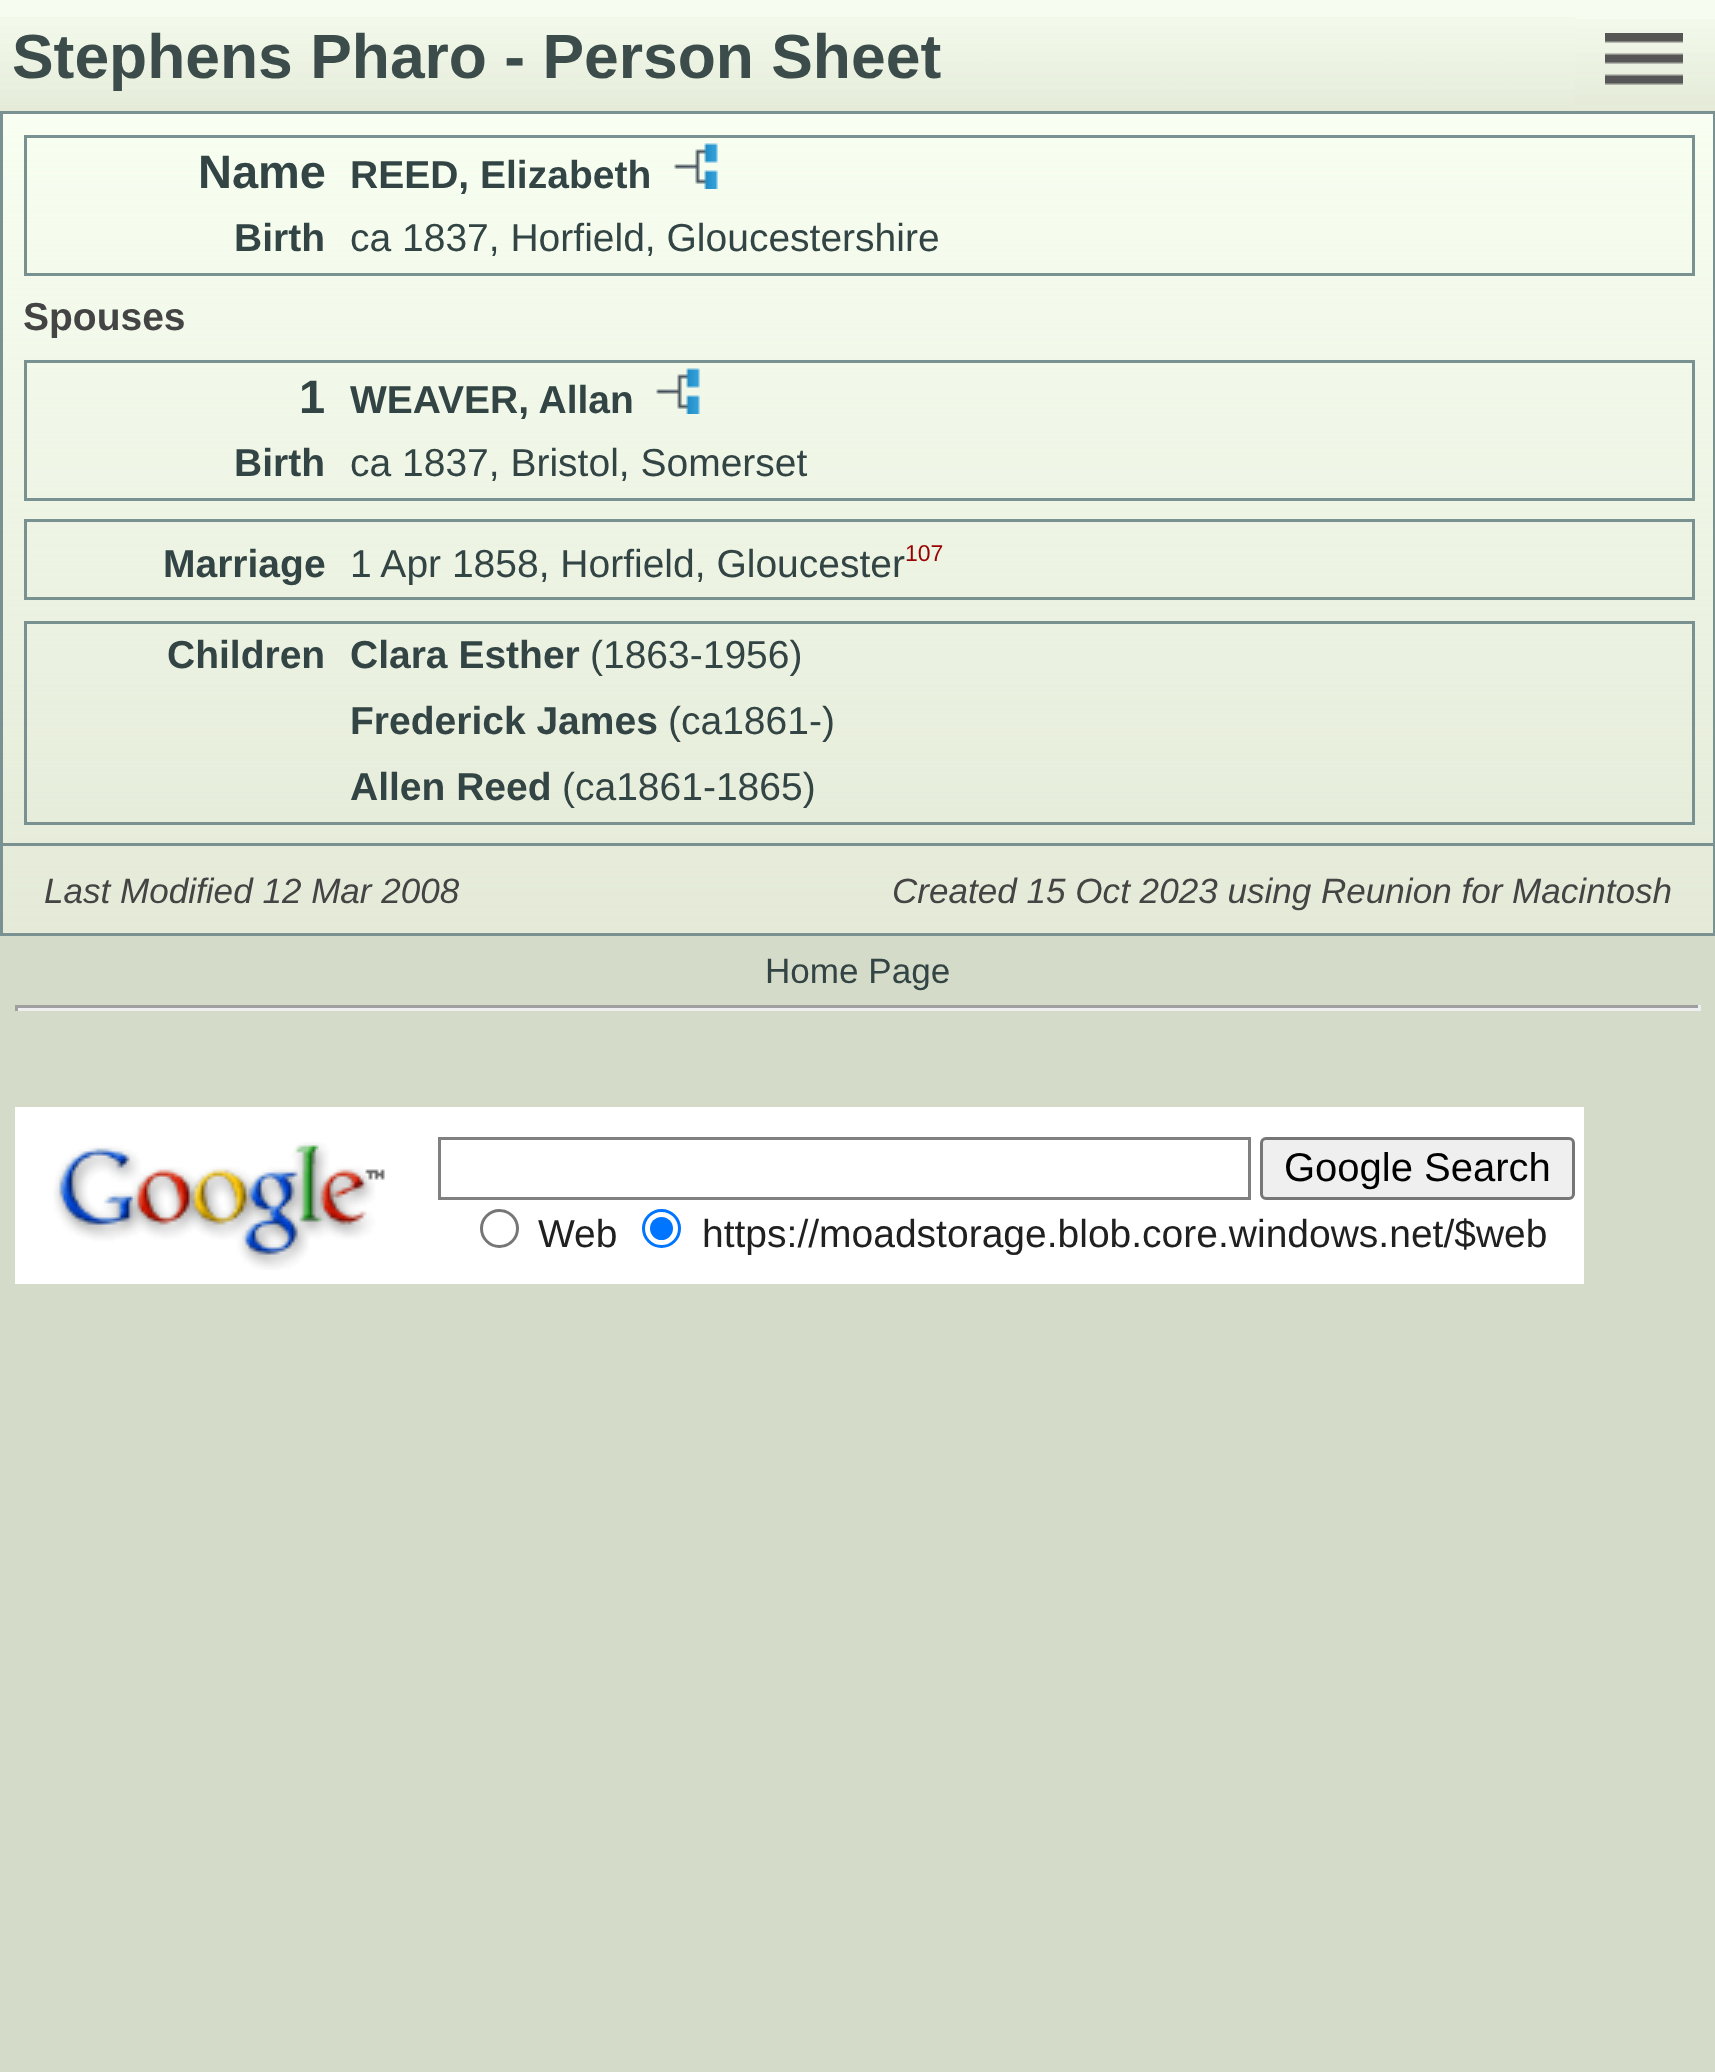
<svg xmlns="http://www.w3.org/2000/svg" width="1715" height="2072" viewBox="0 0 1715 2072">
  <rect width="100%" height="100%" fill="#d5dbc9"/>
  <rect x="0" y="0" width="1715" height="111" fill="#f6fdf0"/>
  <image x="0" y="17" width="1715" height="94" href="img1.png"/>
  <text x="12" y="78" font-family="Liberation Sans" font-size="62.4" font-weight="bold" fill="#3b4c4b">Stephens Pharo - Person Sheet</text>
  <rect x="1575" y="17" width="140" height="88" fill="#f6fdf0"/>
  <image x="1575" y="19" width="140" height="86" href="img2.png"/>
  <image x="1605" y="33" width="78" height="52" href="img3.png"/>
  <rect x="3" y="114" width="1710" height="819" fill="#f8fff2"/>
  <image x="3" y="131" width="1710" height="802" href="img4.png"/>
  <rect x="1.5" y="112.5" width="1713" height="822" fill="none" stroke="#7a9191" stroke-width="3"/>
  <rect x="25.5" y="136.5" width="1668" height="138" fill="none" stroke="#7a9191" stroke-width="3"/>
  <text x="198" y="188" font-family="Liberation Sans" font-size="47" font-weight="bold" fill="#334444">Name</text>
  <text x="350" y="188" font-family="Liberation Sans" font-size="39" font-weight="bold" fill="#334444">REED, Elizabeth</text>
  <image x="674" y="143" width="44" height="46" href="img5.png"/>
  <text x="234" y="251" font-family="Liberation Sans" font-size="39" font-weight="bold" fill="#334444">Birth</text>
  <text x="350" y="251" font-family="Liberation Sans" font-size="39" fill="#334444">ca 1837, Horfield, Gloucestershire</text>
  <text x="23" y="330" font-family="Liberation Sans" font-size="39" font-weight="bold" fill="#444444">Spouses</text>
  <rect x="25.5" y="361.5" width="1668" height="138" fill="none" stroke="#7a9191" stroke-width="3"/>
  <text x="299" y="413" font-family="Liberation Sans" font-size="47" font-weight="bold" fill="#334444">1</text>
  <text x="350" y="413" font-family="Liberation Sans" font-size="39" font-weight="bold" fill="#334444">WEAVER, Allan</text>
  <image x="656" y="368" width="44" height="46" href="img6.png"/>
  <text x="234" y="476" font-family="Liberation Sans" font-size="39" font-weight="bold" fill="#334444">Birth</text>
  <text x="350" y="476" font-family="Liberation Sans" font-size="39" fill="#334444">ca 1837, Bristol, Somerset</text>
  <rect x="25.5" y="520.5" width="1668" height="78" fill="none" stroke="#7a9191" stroke-width="3"/>
  <text x="163" y="577" font-family="Liberation Sans" font-size="39" font-weight="bold" fill="#334444">Marriage</text>
  <text x="350" y="577" font-family="Liberation Sans" font-size="39" fill="#334444">1 Apr 1858, Horfield, Gloucester</text>
  <text x="905" y="561" font-family="Liberation Sans" font-size="23" fill="#990000">107</text>
  <rect x="25.5" y="622.5" width="1668" height="201" fill="none" stroke="#7a9191" stroke-width="3"/>
  <text x="167" y="668" font-family="Liberation Sans" font-size="39" font-weight="bold" fill="#334444">Children</text>
  <text x="350" y="668" font-family="Liberation Sans" font-size="39" font-weight="bold" fill="#334444">Clara Esther</text>
  <text x="590" y="668" font-family="Liberation Sans" font-size="39" fill="#334444">(1863-1956)</text>
  <text x="350" y="734" font-family="Liberation Sans" font-size="39" font-weight="bold" fill="#334444">Frederick James</text>
  <text x="668" y="734" font-family="Liberation Sans" font-size="39" fill="#334444">(ca1861-)</text>
  <text x="350" y="800" font-family="Liberation Sans" font-size="39" font-weight="bold" fill="#334444">Allen Reed</text>
  <text x="562" y="800" font-family="Liberation Sans" font-size="39" fill="#334444">(ca1861-1865)</text>
  <rect x="3" y="843" width="1710" height="3" fill="#7a9191"/>
  <text x="44" y="903" font-family="Liberation Sans" font-size="35.1" font-style="italic" fill="#444444">Last Modified 12 Mar 2008</text>
  <text x="892" y="903" font-family="Liberation Sans" font-size="35.1" font-style="italic" fill="#444444">Created 15 Oct 2023 using Reunion for Macintosh</text>
  <text x="765" y="983" font-family="Liberation Sans" font-size="35.1" fill="#334444">Home Page</text>
  <rect x="15" y="1005" width="1686" height="3" fill="#9f9f9f"/>
  <rect x="1698" y="1005" width="3" height="6" fill="#eeeeee"/>
  <rect x="15" y="1008" width="1686" height="3" fill="#eeeeee"/>
  <rect x="15" y="1005" width="3" height="6" fill="#9f9f9f"/>
  <rect x="15" y="1107" width="1569" height="177" fill="#ffffff"/>
  <image x="53" y="1142" width="332" height="128" href="img7.png"/>
  <rect x="439.5" y="1138.5" width="810" height="60" fill="none" stroke="#808080" stroke-width="3"/>
  <rect x="1261.5" y="1138.5" width="312" height="60" rx="4.5" fill="#efefef" stroke="#767676" stroke-width="3"/>
  <text x="1284" y="1181" font-family="Liberation Sans" font-size="40" fill="#000000">Google Search</text>
  <circle cx="499.5" cy="1228.5" r="18" fill="none" stroke="#767676" stroke-width="3"/>
  <text x="538" y="1247" font-family="Liberation Sans" font-size="39" fill="#202020">Web</text>
  <circle cx="661.5" cy="1228.5" r="18" fill="none" stroke="#0075ff" stroke-width="3"/>
  <circle cx="661.5" cy="1228.5" r="11.5" fill="#0075ff"/>
  <text x="702" y="1247" font-family="Liberation Sans" font-size="39" fill="#202020">https://moadstorage.blob.core.windows.net/$web</text>
</svg>
